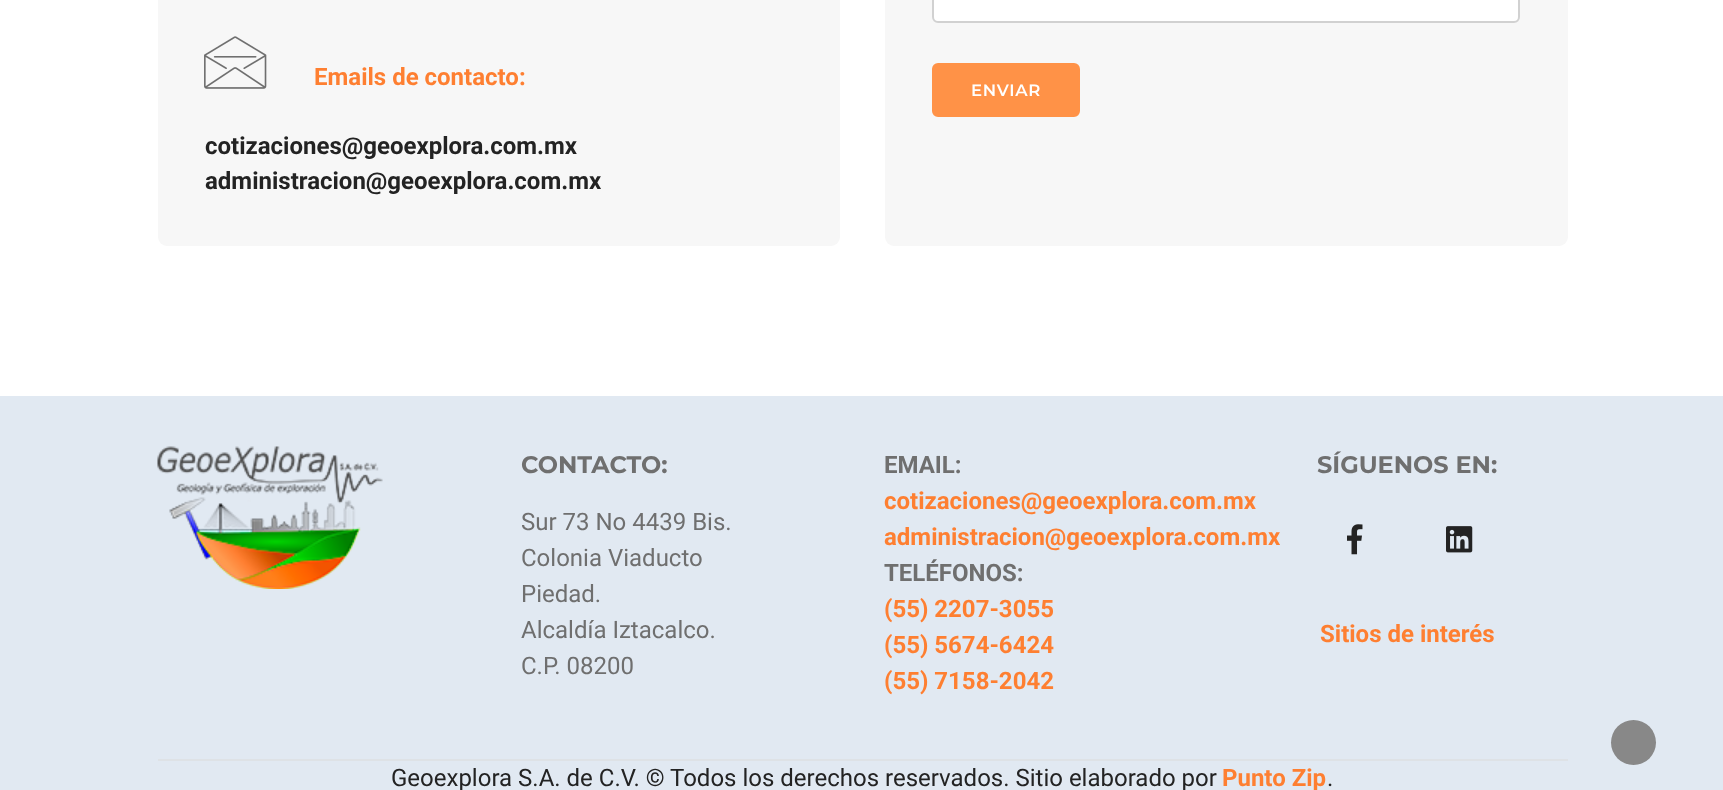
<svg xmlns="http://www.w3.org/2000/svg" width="1723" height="790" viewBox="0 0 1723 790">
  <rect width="100%" height="100%" fill="#ffffff"/>
  <rect x="158" y="-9" width="682" height="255" rx="9" fill="#f7f7f7"/>
  <image x="204" y="36" width="63" height="53" href="img1.png"/>
  <text x="314" y="85" font-family="Roboto" font-size="24" font-weight="bold" fill="#fe7f31">Emails de contacto:</text>
  <text x="205" y="154" font-family="Roboto" font-size="24" font-weight="bold" fill="#232323">cotizaciones@geoexplora.com.mx</text>
  <text x="205" y="189" font-family="Roboto" font-size="24" font-weight="bold" fill="#232323">administracion@geoexplora.com.mx</text>
  <rect x="885" y="-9" width="683" height="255" rx="9" fill="#f7f7f7"/>
  <rect x="933" y="-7" width="586" height="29" rx="5" fill="#ffffff" stroke="#d1d1d1" stroke-width="2"/>
  <rect x="933.5" y="64.5" width="145" height="51" rx="4.5" fill="#ff9247" stroke="#ff9247" stroke-width="3"/>
  <text x="971" y="96" font-family="Montserrat" font-size="16.5" font-weight="600" letter-spacing="0.75" fill="#ffffff">ENVIAR</text>
  <rect x="0" y="396" width="1723" height="394" fill="#e1e9f2"/>
  <image x="157" y="446" width="226" height="143" href="img2.png"/>
  <text x="521" y="473" font-family="Montserrat" font-size="24" font-weight="bold" fill="#6f6f6f">CONTACTO:</text>
  <text x="521" y="530" font-family="Roboto" font-size="24" fill="#6f6f6f">Sur 73 No 4439 Bis.</text>
  <text x="521" y="566" font-family="Roboto" font-size="24" fill="#6f6f6f">Colonia Viaducto</text>
  <text x="521" y="602" font-family="Roboto" font-size="24" fill="#6f6f6f">Piedad.</text>
  <text x="521" y="638" font-family="Roboto" font-size="24" fill="#6f6f6f">Alcaldía Iztacalco.</text>
  <text x="521" y="674" font-family="Roboto" font-size="24" fill="#6f6f6f">C.P. 08200</text>
  <text x="884" y="473" font-family="Roboto" font-size="24" font-weight="bold" fill="#6f6f6f">EMAIL:</text>
  <text x="884" y="509" font-family="Roboto" font-size="24" font-weight="bold" fill="#fe7f31">cotizaciones@geoexplora.com.mx</text>
  <text x="884" y="545" font-family="Roboto" font-size="24" font-weight="bold" fill="#fe7f31">administracion@geoexplora.com.mx</text>
  <text x="884" y="581" font-family="Roboto" font-size="24" font-weight="bold" fill="#6f6f6f">TELÉFONOS:</text>
  <text x="884" y="617" font-family="Roboto" font-size="24" font-weight="bold" fill="#fe7f31">(55) 2207-3055</text>
  <text x="884" y="653" font-family="Roboto" font-size="24" font-weight="bold" fill="#fe7f31">(55) 5674-6424</text>
  <text x="884" y="689" font-family="Roboto" font-size="24" font-weight="bold" fill="#fe7f31">(55) 7158-2042</text>
  <text x="1317" y="473" font-family="Montserrat" font-size="24" font-weight="bold" fill="#6f6f6f">SÍGUENOS EN:</text>
  <image x="1347" y="524" width="16" height="31" href="img3.png"/>
  <image x="1446" y="526" width="27" height="27" href="img4.png"/>
  <text x="1320" y="642" font-family="Roboto" font-size="24" font-weight="bold" fill="#fe7f31">Sitios de interés</text>
  <rect x="158" y="759" width="1410" height="2" fill="#dee2e6"/>
  <text x="391" y="786" font-family="Roboto" font-size="24" fill="#232323">Geoexplora S.A. de C.V. © Todos los derechos reservados. Sitio elaborado por</text>
  <text x="1222" y="786" font-family="Roboto" font-size="24" font-weight="bold" fill="#fe7f31">Punto Zip</text>
  <text x="1327" y="786" font-family="Roboto" font-size="24" fill="#232323">.</text>
  <circle cx="1633.5" cy="742.5" r="22.5" fill="#888888"/>
</svg>
